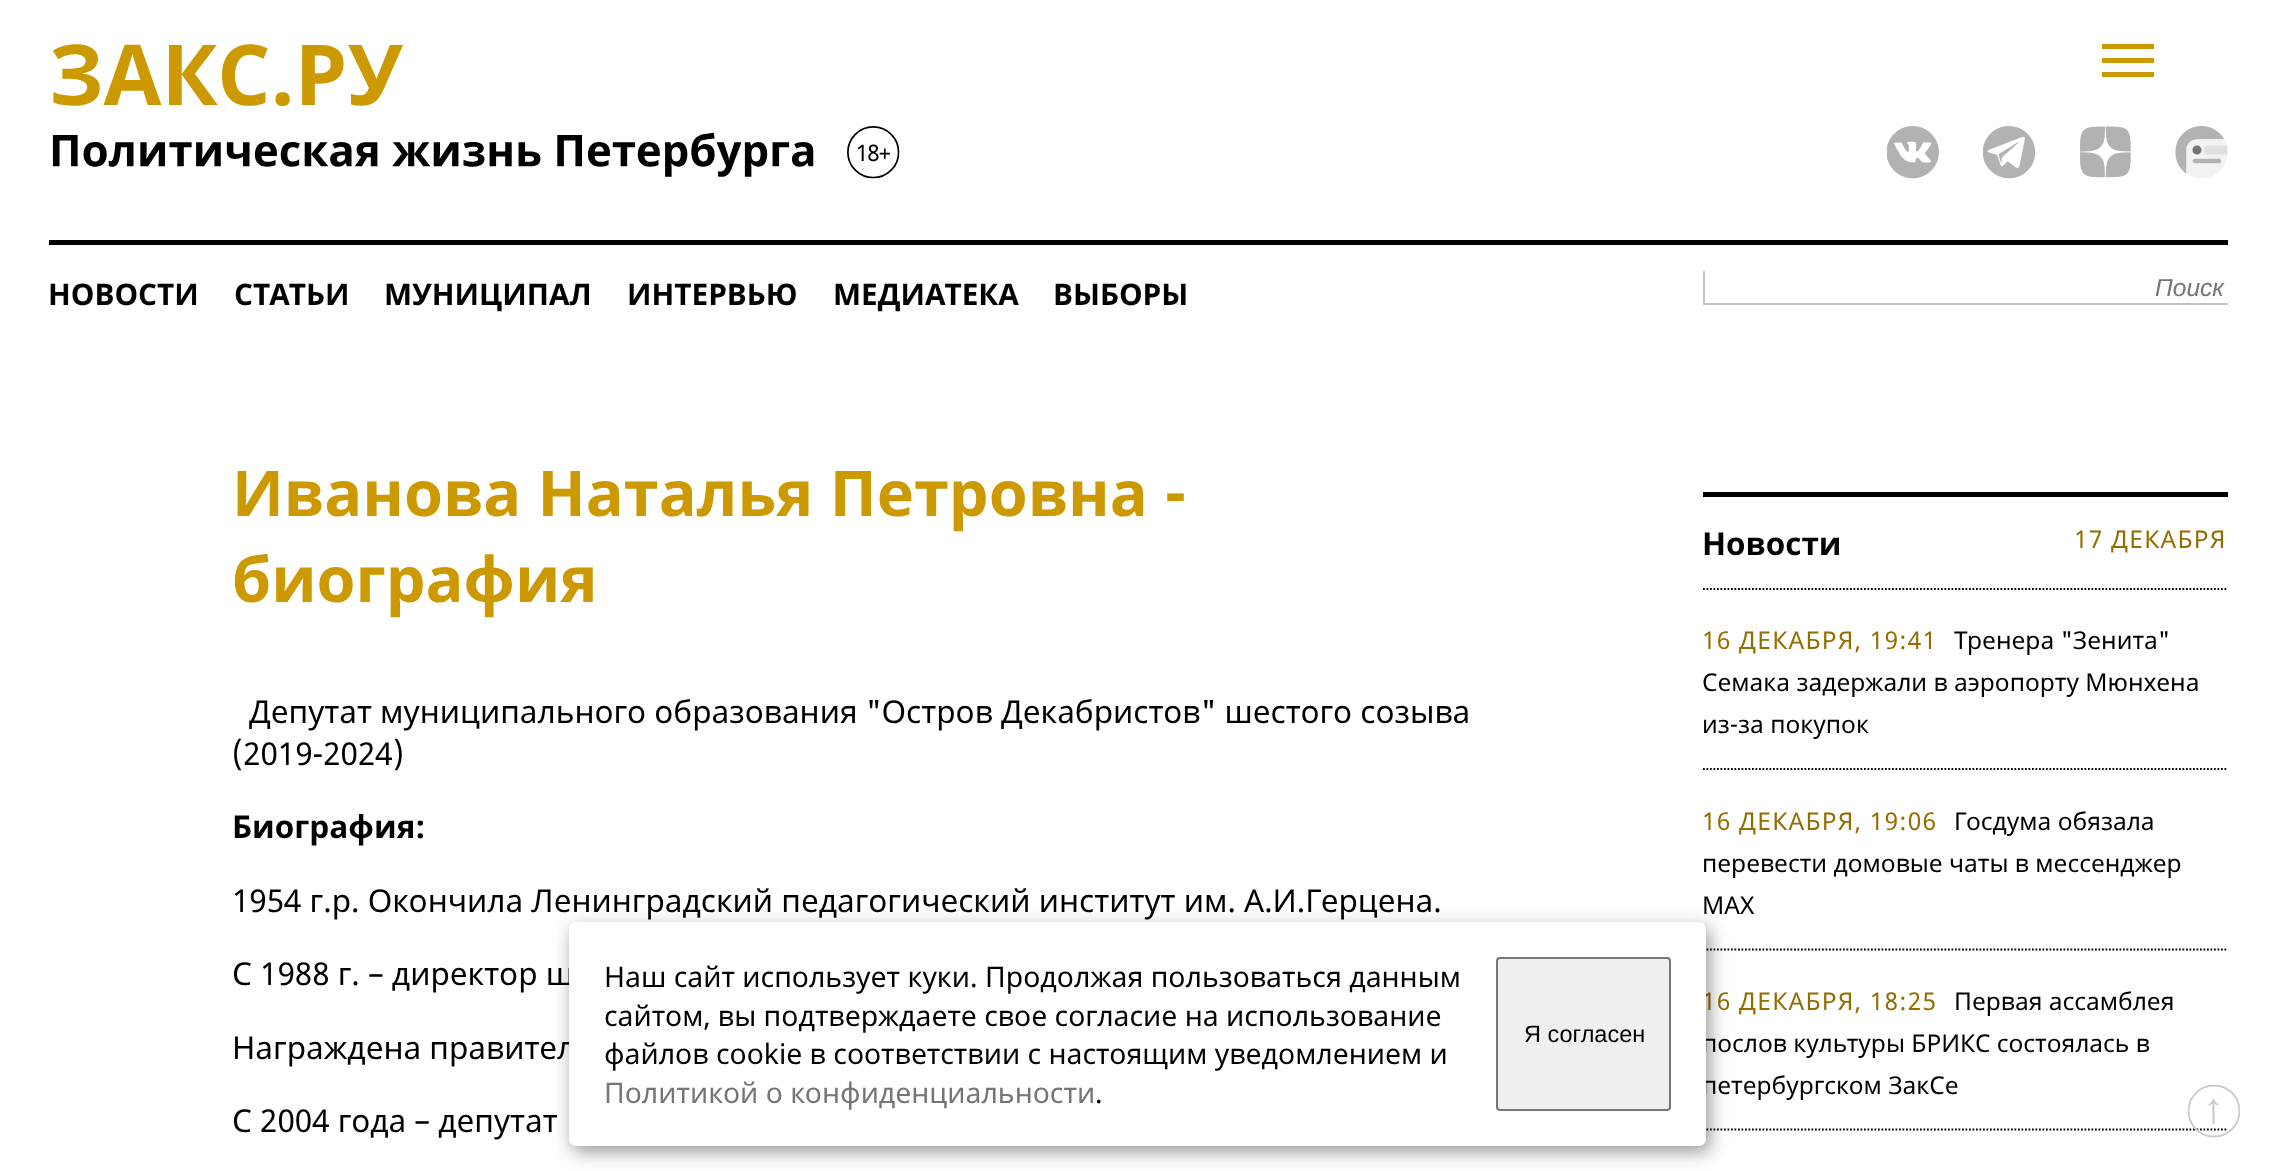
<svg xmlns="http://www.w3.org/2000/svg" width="2274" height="1171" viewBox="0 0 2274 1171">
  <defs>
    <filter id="blur1" x="-50%" y="-200%" width="200%" height="500%"><feGaussianBlur stdDeviation="9"/></filter>
    <clipPath id="clip1"><rect x="2188" y="1085" width="52" height="53"/></clipPath>
  </defs>
  <rect width="100%" height="100%" fill="#ffffff"/>
  <image x="52" y="44" width="848" height="135" href="img1.png"/>
  <rect x="2102" y="44" width="52" height="5" fill="#cc9900"/>
  <rect x="2102" y="58" width="52" height="5" fill="#cc9900"/>
  <rect x="2102" y="72" width="52" height="5" fill="#cc9900"/>
  <image x="1887" y="126" width="52" height="53" href="img2.png"/>
  <image x="1983" y="126" width="52" height="53" href="img3.png"/>
  <image x="2080" y="126" width="51" height="52" href="img4.png"/>
  <image x="2175" y="126" width="53" height="52" href="img5.png"/>
  <rect x="49" y="240" width="2179" height="5" fill="#000000"/>
  <text x="48" y="305" font-family="Noto Sans" font-size="29.75" font-weight="bold" fill="#000000">НОВОСТИ</text>
  <text x="234" y="305" font-family="Noto Sans" font-size="29.75" font-weight="bold" fill="#000000">СТАТЬИ</text>
  <text x="384" y="305" font-family="Noto Sans" font-size="29.75" font-weight="bold" fill="#000000">МУНИЦИПАЛ</text>
  <text x="627" y="305" font-family="Noto Sans" font-size="29.75" font-weight="bold" fill="#000000">ИНТЕРВЬЮ</text>
  <text x="833" y="305" font-family="Noto Sans" font-size="29.75" font-weight="bold" fill="#000000">МЕДИАТЕКА</text>
  <text x="1053" y="305" font-family="Noto Sans" font-size="29.75" font-weight="bold" fill="#000000">ВЫБОРЫ</text>
  <rect x="1703" y="303" width="525" height="2" fill="#c4c4c4"/>
  <rect x="1703" y="271" width="2" height="34" fill="#c4c4c4"/>
  <text x="2155" y="296" font-family="Liberation Sans" font-size="24.5" font-style="italic" fill="#757575">Поиск</text>
  <text x="232" y="516" font-family="Noto Sans" font-size="63" font-weight="bold" fill="#cc9900">Иванова Наталья Петровна -</text>
  <text x="232" y="602" font-family="Noto Sans" font-size="63" font-weight="bold" fill="#cc9900">биография</text>
  <text x="249" y="723" font-family="Noto Sans" font-size="31.5" fill="#000000">Депутат муниципального образования "Остров Декабристов" шестого созыва</text>
  <text x="232" y="765" font-family="Noto Sans" font-size="31.5" fill="#000000">(2019-2024)</text>
  <text x="232" y="838" font-family="Noto Sans" font-size="31.5" font-weight="bold" fill="#000000">Биография:</text>
  <text x="232" y="912" font-family="Noto Sans" font-size="31.5" fill="#000000">1954 г.р. Окончила Ленинградский педагогический институт им. А.И.Герцена.</text>
  <text x="232" y="985" font-family="Noto Sans" font-size="31.5" fill="#000000">С 1988 г. – директор ш</text>
  <text x="232" y="1059" font-family="Noto Sans" font-size="31.5" fill="#000000">Награждена правител</text>
  <text x="232" y="1132" font-family="Noto Sans" font-size="31.5" fill="#000000">С 2004 года – депутат</text>
  <rect x="1703" y="492" width="525" height="5" fill="#000000"/>
  <text x="1702" y="555" font-family="Noto Sans" font-size="31.5" font-weight="bold" fill="#000000">Новости</text>
  <text x="2074" y="548" font-family="Noto Sans" font-size="24.5" letter-spacing="1.25" fill="#946d00">17 ДЕКАБРЯ</text>
  <path d="M1703 589H2228" fill="none" stroke="#000000" stroke-width="1.8" stroke-dasharray="1.75 1.75"/>
  <text x="1702" y="649" font-family="Noto Sans" font-size="24.5" letter-spacing="1.25" fill="#946d00">16 ДЕКАБРЯ, 19:41</text>
  <text x="1954" y="649" font-family="Noto Sans" font-size="24.5" fill="#000000">Тренера "Зенита"</text>
  <text x="1702" y="691" font-family="Noto Sans" font-size="24.5" fill="#000000">Семака задержали в аэропорту Мюнхена</text>
  <text x="1702" y="733" font-family="Noto Sans" font-size="24.5" fill="#000000">из-за покупок</text>
  <path d="M1703 769H2228" fill="none" stroke="#000000" stroke-width="1.8" stroke-dasharray="1.75 1.75"/>
  <text x="1702" y="830" font-family="Noto Sans" font-size="24.5" letter-spacing="1.25" fill="#946d00">16 ДЕКАБРЯ, 19:06</text>
  <text x="1954" y="830" font-family="Noto Sans" font-size="24.5" fill="#000000">Госдума обязала</text>
  <text x="1702" y="872" font-family="Noto Sans" font-size="24.5" fill="#000000">перевести домовые чаты в мессенджер</text>
  <text x="1702" y="914" font-family="Noto Sans" font-size="24.5" fill="#000000">MAX</text>
  <path d="M1703 949.5H2228" fill="none" stroke="#000000" stroke-width="1.8" stroke-dasharray="1.75 1.75"/>
  <text x="1702" y="1010" font-family="Noto Sans" font-size="24.5" letter-spacing="1.25" fill="#946d00">16 ДЕКАБРЯ, 18:25</text>
  <text x="1954" y="1010" font-family="Noto Sans" font-size="24.5" fill="#000000">Первая ассамблея</text>
  <text x="1702" y="1052" font-family="Noto Sans" font-size="24.5" fill="#000000">послов культуры БРИКС состоялась в</text>
  <text x="1702" y="1094" font-family="Noto Sans" font-size="24.5" fill="#000000">петербургском ЗакСе</text>
  <path d="M1703 1129.5H2228" fill="none" stroke="#000000" stroke-width="1.8" stroke-dasharray="1.75 1.75"/>
  <rect x="572" y="928" width="1138" height="224" rx="7" fill="#000000" fill-opacity="0.4" filter="url(#blur1)"/>
  <rect x="569" y="922" width="1137" height="224" rx="7" fill="#ffffff"/>
  <text x="604" y="987" font-family="Noto Sans" font-size="28.35" fill="#000000">Наш сайт использует куки. Продолжая пользоваться данным</text>
  <text x="604" y="1026" font-family="Noto Sans" font-size="28.35" fill="#000000">сайтом, вы подтверждаете свое согласие на использование</text>
  <text x="604" y="1064" font-family="Noto Sans" font-size="28.35" fill="#000000">файлов cookie в соответствии с настоящим уведомлением и</text>
  <text x="604" y="1103" font-family="Noto Sans" font-size="28.35" fill="#757575">Политикой о конфиденциальности</text>
  <text x="1095" y="1103" font-family="Noto Sans" font-size="28.35" fill="#000000">.</text>
  <rect x="1497" y="958" width="173" height="152" rx="3" fill="#efefef" stroke="#767676" stroke-width="2"/>
  <text x="1524" y="1042" font-family="Liberation Sans" font-size="23.5" fill="#000000">Я согласен</text>
  <path d="M2212.5 1103.5L2208.5 1106V1104.5C2210.5 1103 2212 1101 2213 1099H2214C2215 1101 2216.5 1103 2218.5 1104.5V1106L2214.5 1103.5V1124H2212.5Z" fill="#cacaca"/>
  <g clip-path="url(#clip1)">
    <circle cx="2214" cy="1111" r="25.5" fill="none" stroke="#c4c4c4" stroke-opacity="0.9" stroke-width="1.8"/>
  </g>
</svg>
